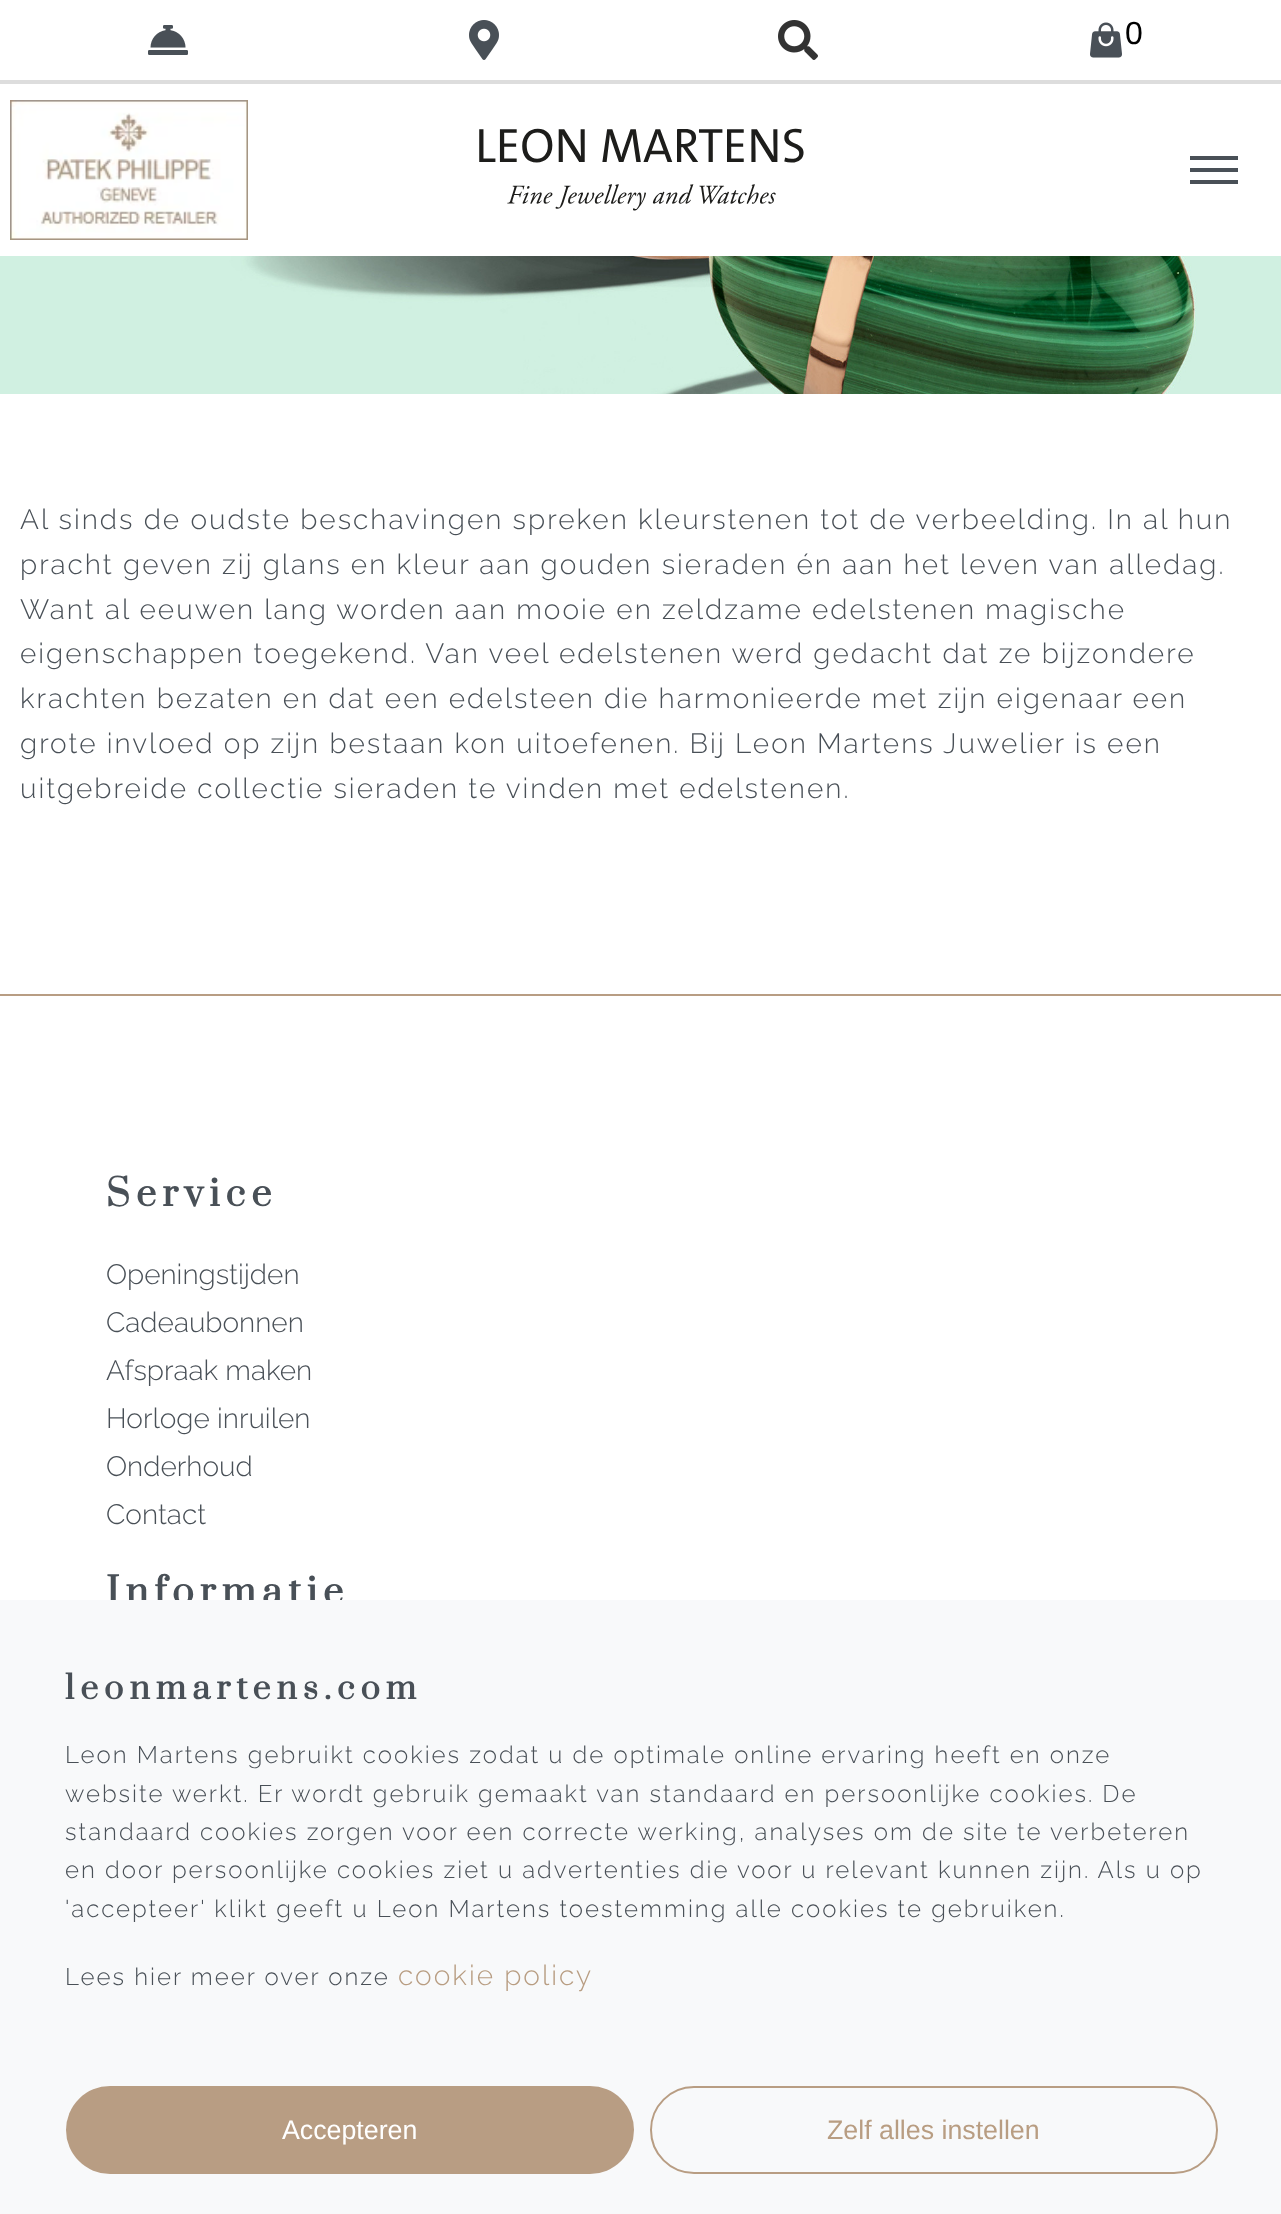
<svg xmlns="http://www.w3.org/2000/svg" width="1281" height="2214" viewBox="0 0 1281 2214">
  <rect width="100%" height="100%" fill="#ffffff"/>
  <rect x="0" y="80" width="1281" height="4" fill="#dddddd"/>
  <image x="148" y="25" width="40" height="30" href="img1.png"/>
  <image x="469" y="20" width="30" height="40" href="img2.png"/>
  <image x="778" y="20" width="40" height="40" href="img3.png"/>
  <image x="1090" y="22" width="32" height="36" href="img4.png"/>
  <text x="1125" y="44" font-family="Liberation Sans" font-size="32" fill="#000000">0</text>
  <image x="10" y="100" width="238" height="140" href="img5.png"/>
  <image x="479" y="128" width="325" height="83" href="img6.png"/>
  <rect x="1190" y="156" width="48" height="4" fill="#495057"/>
  <rect x="1190" y="168" width="48" height="4" fill="#495057"/>
  <rect x="1190" y="180" width="48" height="4" fill="#495057"/>
  <image x="0" y="256" width="1281" height="138" href="img7.png"/>
  <text x="20" y="529" font-family="Raleway" font-size="28" font-weight="300" letter-spacing="2" fill="#495057">Al sinds de oudste beschavingen spreken kleurstenen tot de verbeelding. In al hun</text>
  <text x="20" y="574" font-family="Raleway" font-size="28" font-weight="300" letter-spacing="2" fill="#495057">pracht geven zij glans en kleur aan gouden sieraden én aan het leven van alledag.</text>
  <text x="20" y="619" font-family="Raleway" font-size="28" font-weight="300" letter-spacing="2" fill="#495057">Want al eeuwen lang worden aan mooie en zeldzame edelstenen magische</text>
  <text x="20" y="663" font-family="Raleway" font-size="28" font-weight="300" letter-spacing="2" fill="#495057">eigenschappen toegekend. Van veel edelstenen werd gedacht dat ze bijzondere</text>
  <text x="20" y="708" font-family="Raleway" font-size="28" font-weight="300" letter-spacing="2" fill="#495057">krachten bezaten en dat een edelsteen die harmonieerde met zijn eigenaar een</text>
  <text x="20" y="753" font-family="Raleway" font-size="28" font-weight="300" letter-spacing="2" fill="#495057">grote invloed op zijn bestaan kon uitoefenen. Bij Leon Martens Juwelier is een</text>
  <text x="20" y="798" font-family="Raleway" font-size="28" font-weight="300" letter-spacing="2" fill="#495057">uitgebreide collectie sieraden te vinden met edelstenen.</text>
  <rect x="0" y="994" width="1281" height="2" fill="#b89d83"/>
  <text x="106" y="1206" font-family="Prata" font-size="36" font-weight="bold" letter-spacing="6" fill="#495057">Service</text>
  <text x="106" y="1284" font-family="Raleway" font-size="28" font-weight="300" fill="#495057">Openingstijden</text>
  <text x="106" y="1332" font-family="Raleway" font-size="28" font-weight="300" fill="#495057">Cadeaubonnen</text>
  <text x="106" y="1380" font-family="Raleway" font-size="28" font-weight="300" fill="#495057">Afspraak maken</text>
  <text x="106" y="1428" font-family="Raleway" font-size="28" font-weight="300" fill="#495057">Horloge inruilen</text>
  <text x="106" y="1476" font-family="Raleway" font-size="28" font-weight="300" fill="#495057">Onderhoud</text>
  <text x="106" y="1524" font-family="Raleway" font-size="28" font-weight="300" fill="#495057">Contact</text>
  <text x="106" y="1604" font-family="Prata" font-size="36" font-weight="bold" letter-spacing="6" fill="#495057">Informatie</text>
  <rect x="0" y="1600" width="1281" height="614" fill="#f8f9fa"/>
  <text x="65" y="1699" font-family="Prata" font-size="32" font-weight="bold" letter-spacing="6" fill="#495057">leonmartens.com</text>
  <text x="65" y="1763" font-family="Raleway" font-size="24" font-weight="300" letter-spacing="2" fill="#495057">Leon Martens gebruikt cookies zodat u de optimale online ervaring heeft en onze</text>
  <text x="65" y="1802" font-family="Raleway" font-size="24" font-weight="300" letter-spacing="2" fill="#495057">website werkt. Er wordt gebruik gemaakt van standaard en persoonlijke cookies. De</text>
  <text x="65" y="1840" font-family="Raleway" font-size="24" font-weight="300" letter-spacing="2" fill="#495057">standaard cookies zorgen voor een correcte werking, analyses om de site te verbeteren</text>
  <text x="65" y="1878" font-family="Raleway" font-size="24" font-weight="300" letter-spacing="2" fill="#495057">en door persoonlijke cookies ziet u advertenties die voor u relevant kunnen zijn. Als u op</text>
  <text x="65" y="1917" font-family="Raleway" font-size="24" font-weight="300" letter-spacing="2" fill="#495057">'accepteer' klikt geeft u Leon Martens toestemming alle cookies te gebruiken.</text>
  <text x="65" y="1985" font-family="Raleway" font-size="24" font-weight="300" letter-spacing="2" fill="#495057">Lees hier meer over onze</text>
  <text x="398" y="1985" font-family="Raleway" font-size="28" font-weight="300" letter-spacing="2" fill="#b89d82">cookie policy</text>
  <rect x="66" y="2086" width="568" height="88" rx="44" fill="#b89d83"/>
  <text x="282" y="2139" font-family="Liberation Sans" font-size="26.75" fill="#ffffff">Accepteren</text>
  <rect x="651" y="2087" width="566" height="86" rx="43" fill="none" stroke="#b89d83" stroke-width="2"/>
  <text x="827" y="2139" font-family="Liberation Sans" font-size="26.75" fill="#b89d82">Zelf alles instellen</text>
</svg>
